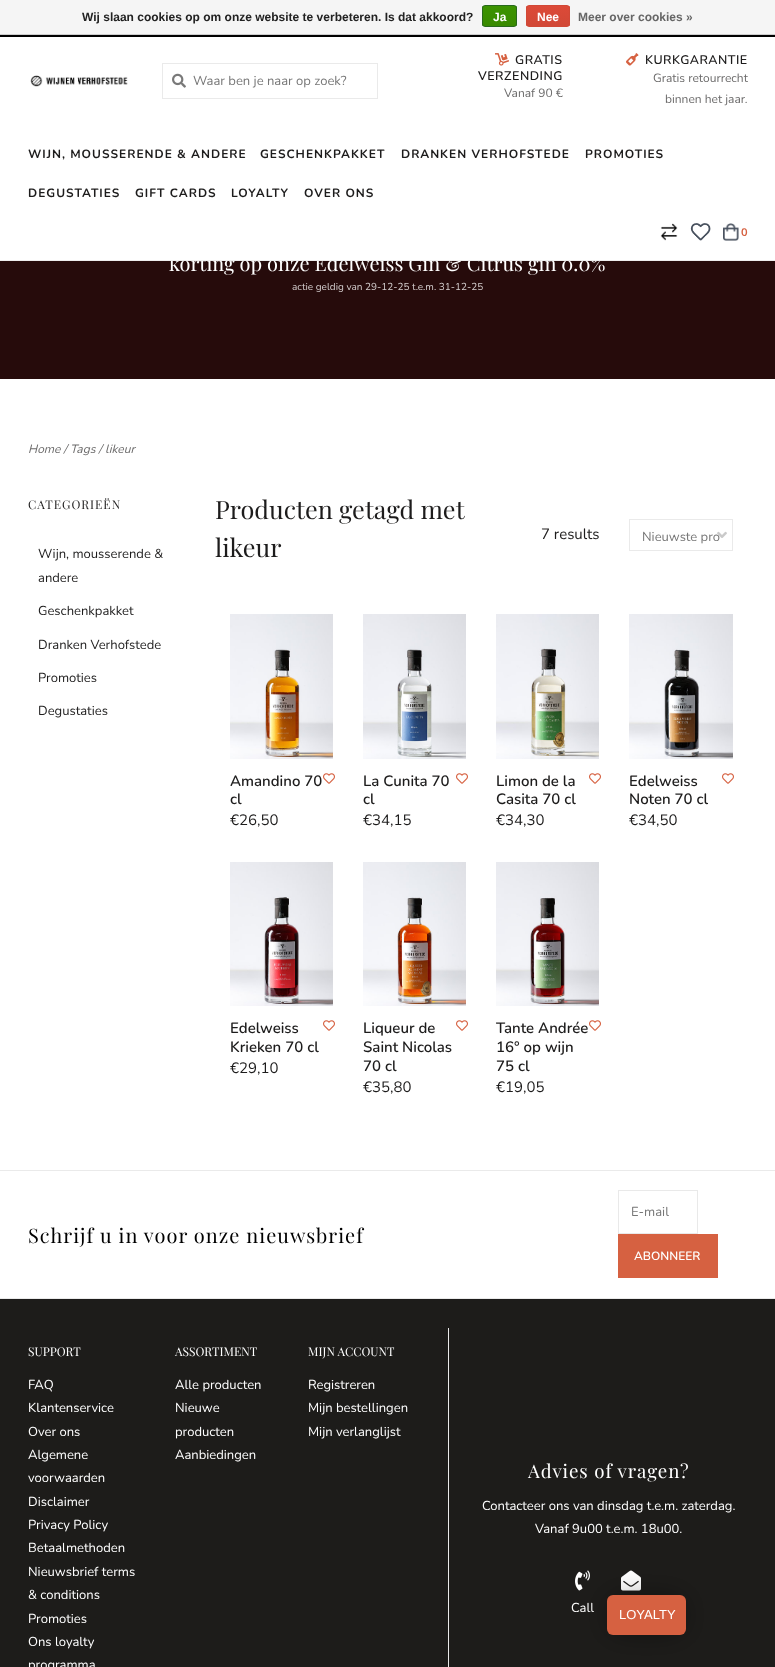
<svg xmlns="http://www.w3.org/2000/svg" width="775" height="1667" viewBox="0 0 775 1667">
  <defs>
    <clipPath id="clip1"><rect x="482" y="5" width="35" height="22" rx="3"/></clipPath>
    <linearGradient id="g1" gradientUnits="userSpaceOnUse" x1="500" y1="6" x2="500" y2="26"><stop offset="0" stop-color="#3c9300"/><stop offset="1" stop-color="#398a00"/></linearGradient>
    <clipPath id="clip2"><rect x="526" y="5" width="44" height="22" rx="3"/></clipPath>
    <linearGradient id="g2" gradientUnits="userSpaceOnUse" x1="548" y1="6" x2="548" y2="26"><stop offset="0" stop-color="#dc4a38"/><stop offset="1" stop-color="#d14836"/></linearGradient>
    <filter id="blur1" x="-50%" y="-200%" width="200%" height="500%"><feGaussianBlur stdDeviation="15"/></filter>
  </defs>
  <rect width="100%" height="100%" fill="#ffffff"/>
  <rect x="0" y="0" width="775" height="34" fill="#f5f5f5"/>
  <rect x="0" y="34" width="775" height="1" fill="#cccccc"/>
  <text x="82" y="21" font-family="Liberation Sans" font-size="12" font-weight="bold" fill="#222222">Wij slaan cookies op om onze website te verbeteren. Is dat akkoord?</text>
  <g clip-path="url(#clip1)">
    <rect x="482" y="6" width="35" height="20" fill="url(#g1)"/>
  </g>
  <rect x="482.5" y="5.5" width="34" height="21" rx="2.5" fill="none" stroke="#29691d"/>
  <text x="493" y="21" font-family="Liberation Sans" font-size="12" font-weight="bold" fill="#ffffff">Ja</text>
  <g clip-path="url(#clip2)">
    <rect x="526" y="6" width="44" height="20" fill="url(#g2)"/>
  </g>
  <rect x="526.5" y="5.5" width="43" height="21" rx="2.5" fill="none" stroke="#d14836"/>
  <text x="537" y="21" font-family="Liberation Sans" font-size="12" font-weight="bold" fill="#ffffff">Nee</text>
  <text x="578" y="21" font-family="Liberation Sans" font-size="12" font-weight="bold" fill="#666666">Meer over cookies »</text>
  <rect x="0" y="261" width="775" height="118" fill="#260b0b"/>
  <text x="169" y="271" font-family="Playfair Display" font-size="20" fill="#ffffff">korting op onze Edelweiss Gin &amp; Citrus gin 0.0%</text>
  <rect x="0" y="260" width="775" height="1" fill="#eeeeee"/>
  <rect x="0" y="35" width="775" height="2" fill="#000000"/>
  <image x="30" y="75" width="98" height="12" href="img1.png"/>
  <rect x="162.5" y="63.5" width="215" height="35" fill="none" stroke="#eaeaea"/>
  <image x="172" y="73" width="14" height="15" href="img2.png"/>
  <text x="193" y="85" font-family="Nunito" font-size="13" fill="#777777">Waar ben je naar op zoek?</text>
  <image x="495" y="53" width="14" height="13" href="img3.png"/>
  <text x="515" y="64" font-family="Nunito" font-size="12.5" font-weight="600" letter-spacing="0.5" fill="#1d1c1c">GRATIS</text>
  <text x="478" y="80" font-family="Nunito" font-size="12.5" font-weight="600" letter-spacing="0.5" fill="#1d1c1c">VERZENDING</text>
  <text x="504" y="97" font-family="Nunito" font-size="12" fill="#6c6b6b">Vanaf 90 €</text>
  <image x="626" y="53" width="13" height="13" href="img4.png"/>
  <text x="645" y="64" font-family="Nunito" font-size="12.5" font-weight="600" letter-spacing="0.5" fill="#1d1c1c">KURKGARANTIE</text>
  <text x="653" y="82" font-family="Nunito" font-size="12" fill="#6c6b6b">Gratis retourrecht</text>
  <text x="665" y="103" font-family="Nunito" font-size="12" fill="#6c6b6b">binnen het jaar.</text>
  <text x="28" y="158" font-family="Nunito" font-size="12" font-weight="bold" letter-spacing="1" fill="#1d1c1c">WIJN, MOUSSERENDE &amp; ANDERE</text>
  <text x="260" y="158" font-family="Nunito" font-size="12" font-weight="bold" letter-spacing="1" fill="#1d1c1c">GESCHENKPAKKET</text>
  <text x="401" y="158" font-family="Nunito" font-size="12" font-weight="bold" letter-spacing="1" fill="#1d1c1c">DRANKEN VERHOFSTEDE</text>
  <text x="585" y="158" font-family="Nunito" font-size="12" font-weight="bold" letter-spacing="1" fill="#1d1c1c">PROMOTIES</text>
  <text x="28" y="197" font-family="Nunito" font-size="12" font-weight="bold" letter-spacing="1" fill="#1d1c1c">DEGUSTATIES</text>
  <text x="135" y="197" font-family="Nunito" font-size="12" font-weight="bold" letter-spacing="1" fill="#1d1c1c">GIFT CARDS</text>
  <text x="231" y="197" font-family="Nunito" font-size="12" font-weight="bold" letter-spacing="1" fill="#1d1c1c">LOYALTY</text>
  <text x="304" y="197" font-family="Nunito" font-size="12" font-weight="bold" letter-spacing="1" fill="#1d1c1c">OVER ONS</text>
  <image x="660" y="223" width="18" height="18" href="img5.png"/>
  <image x="690" y="223" width="21" height="18" href="img6.png"/>
  <image x="723" y="223" width="16" height="18" href="img7.png"/>
  <text x="741" y="236" font-family="Nunito" font-size="11" font-weight="bold" fill="#d66141">0</text>
  <text x="292" y="290" font-family="Nunito" font-size="10" fill="#d4cece">actie geldig van 29-12-25 t.e.m. 31-12-25</text>
  <text x="28" y="453" font-family="Nunito" font-size="12" font-style="italic" fill="#6c6b6b">Home / Tags / likeur</text>
  <text x="28" y="509" font-family="Playfair Display" font-size="12" letter-spacing="1" fill="#1d1c1c">CATEGORIEËN</text>
  <text x="38" y="558" font-family="Nunito" font-size="13" fill="#1d1c1c">Wijn, mousserende &amp;</text>
  <text x="38" y="582" font-family="Nunito" font-size="13" fill="#1d1c1c">andere</text>
  <text x="38" y="615" font-family="Nunito" font-size="13" fill="#1d1c1c">Geschenkpakket</text>
  <text x="38" y="649" font-family="Nunito" font-size="13" fill="#1d1c1c">Dranken Verhofstede</text>
  <text x="38" y="682" font-family="Nunito" font-size="13" fill="#1d1c1c">Promoties</text>
  <text x="38" y="715" font-family="Nunito" font-size="13" fill="#1d1c1c">Degustaties</text>
  <text x="215" y="519" font-family="Playfair Display" font-size="25.25" fill="#1d1c1c">Producten getagd met</text>
  <text x="215" y="557" font-family="Playfair Display" font-size="25.25" fill="#1d1c1c">likeur</text>
  <text x="541" y="539" font-family="Nunito" font-size="15" fill="#1d1c1c">7 results</text>
  <image x="717" y="531" width="10" height="7" href="img8.png"/>
  <rect x="629.5" y="519.5" width="103" height="31" fill="none" stroke="#eaeaea"/>
  <text x="642" y="541" font-family="Nunito" font-size="13" fill="#777777">Nieuwste pro</text>
  <image x="230" y="614" width="103" height="145" href="img9.png"/>
  <text x="230" y="786" font-family="Nunito" font-size="15" font-weight="600" fill="#1d1c1c">Amandino 70</text>
  <text x="230" y="804" font-family="Nunito" font-size="15" font-weight="600" fill="#1d1c1c">cl</text>
  <image x="323" y="773" width="12" height="11" href="img10.png"/>
  <text x="230" y="825" font-family="Nunito" font-size="15" fill="#1d1c1c">€26,50</text>
  <image x="363" y="614" width="103" height="145" href="img11.png"/>
  <text x="363" y="786" font-family="Nunito" font-size="15" font-weight="600" fill="#1d1c1c">La Cunita 70</text>
  <text x="363" y="804" font-family="Nunito" font-size="15" font-weight="600" fill="#1d1c1c">cl</text>
  <image x="456" y="773" width="12" height="11" href="img10.png"/>
  <text x="363" y="825" font-family="Nunito" font-size="15" fill="#1d1c1c">€34,15</text>
  <image x="496" y="614" width="103" height="145" href="img12.png"/>
  <text x="496" y="786" font-family="Nunito" font-size="15" font-weight="600" fill="#1d1c1c">Limon de la</text>
  <text x="496" y="804" font-family="Nunito" font-size="15" font-weight="600" fill="#1d1c1c">Casita 70 cl</text>
  <image x="589" y="773" width="12" height="11" href="img10.png"/>
  <text x="496" y="825" font-family="Nunito" font-size="15" fill="#1d1c1c">€34,30</text>
  <image x="629" y="614" width="104" height="145" href="img13.png"/>
  <text x="629" y="786" font-family="Nunito" font-size="15" font-weight="600" fill="#1d1c1c">Edelweiss</text>
  <text x="629" y="804" font-family="Nunito" font-size="15" font-weight="600" fill="#1d1c1c">Noten 70 cl</text>
  <image x="722" y="773" width="12" height="11" href="img10.png"/>
  <text x="629" y="825" font-family="Nunito" font-size="15" fill="#1d1c1c">€34,50</text>
  <image x="230" y="862" width="103" height="144" href="img14.png"/>
  <text x="230" y="1033" font-family="Nunito" font-size="15" font-weight="600" fill="#1d1c1c">Edelweiss</text>
  <text x="230" y="1052" font-family="Nunito" font-size="15" font-weight="600" fill="#1d1c1c">Krieken 70 cl</text>
  <image x="323" y="1020" width="12" height="11" href="img10.png"/>
  <text x="230" y="1073" font-family="Nunito" font-size="15" fill="#1d1c1c">€29,10</text>
  <image x="363" y="862" width="103" height="144" href="img15.png"/>
  <text x="363" y="1033" font-family="Nunito" font-size="15" font-weight="600" fill="#1d1c1c">Liqueur de</text>
  <text x="363" y="1052" font-family="Nunito" font-size="15" font-weight="600" fill="#1d1c1c">Saint Nicolas</text>
  <text x="363" y="1071" font-family="Nunito" font-size="15" font-weight="600" fill="#1d1c1c">70 cl</text>
  <image x="456" y="1020" width="12" height="11" href="img10.png"/>
  <text x="363" y="1092" font-family="Nunito" font-size="15" fill="#1d1c1c">€35,80</text>
  <image x="496" y="862" width="103" height="144" href="img16.png"/>
  <text x="496" y="1033" font-family="Nunito" font-size="15" font-weight="600" fill="#1d1c1c">Tante Andrée</text>
  <text x="496" y="1052" font-family="Nunito" font-size="15" font-weight="600" fill="#1d1c1c">16° op wijn</text>
  <text x="496" y="1071" font-family="Nunito" font-size="15" font-weight="600" fill="#1d1c1c">75 cl</text>
  <image x="589" y="1020" width="12" height="11" href="img10.png"/>
  <text x="496" y="1092" font-family="Nunito" font-size="15" fill="#1d1c1c">€19,05</text>
  <rect x="0" y="1170" width="775" height="1" fill="#eaeaea"/>
  <text x="28" y="1243" font-family="Playfair Display" font-size="20" letter-spacing="1" fill="#000000">Schrijf u in voor onze nieuwsbrief</text>
  <rect x="618.5" y="1190.5" width="79" height="43" fill="none" stroke="#e9e9e9"/>
  <text x="631" y="1216" font-family="Nunito" font-size="13" fill="#777777">E-mail</text>
  <rect x="618" y="1234" width="100" height="44" fill="#d66141"/>
  <text x="634" y="1260" font-family="Nunito" font-size="12" font-weight="600" fill="#ffffff">ABONNEER</text>
  <rect x="0" y="1299" width="775" height="368" fill="#1d1c1a"/>
  <rect x="0" y="1298" width="775" height="1" fill="#eaeaea"/>
  <text x="28" y="1356" font-family="Playfair Display" font-size="12" fill="#ffffff">SUPPORT</text>
  <text x="28" y="1389" font-family="Nunito" font-size="13" fill="#ffffff">FAQ</text>
  <text x="28" y="1412" font-family="Nunito" font-size="13" fill="#ffffff">Klantenservice</text>
  <text x="28" y="1436" font-family="Nunito" font-size="13" fill="#ffffff">Over ons</text>
  <text x="28" y="1459" font-family="Nunito" font-size="13" fill="#ffffff">Algemene</text>
  <text x="28" y="1482" font-family="Nunito" font-size="13" fill="#ffffff">voorwaarden</text>
  <text x="28" y="1506" font-family="Nunito" font-size="13" fill="#ffffff">Disclaimer</text>
  <text x="28" y="1529" font-family="Nunito" font-size="13" fill="#ffffff">Privacy Policy</text>
  <text x="28" y="1552" font-family="Nunito" font-size="13" fill="#ffffff">Betaalmethoden</text>
  <text x="28" y="1576" font-family="Nunito" font-size="13" fill="#ffffff">Nieuwsbrief terms</text>
  <text x="28" y="1599" font-family="Nunito" font-size="13" fill="#ffffff">&amp; conditions</text>
  <text x="28" y="1623" font-family="Nunito" font-size="13" fill="#ffffff">Promoties</text>
  <text x="28" y="1646" font-family="Nunito" font-size="13" fill="#ffffff">Ons loyalty</text>
  <text x="28" y="1669" font-family="Nunito" font-size="13" fill="#ffffff">programma</text>
  <text x="175" y="1356" font-family="Playfair Display" font-size="12" fill="#ffffff">ASSORTIMENT</text>
  <text x="175" y="1389" font-family="Nunito" font-size="13" fill="#ffffff">Alle producten</text>
  <text x="175" y="1412" font-family="Nunito" font-size="13" fill="#ffffff">Nieuwe</text>
  <text x="175" y="1436" font-family="Nunito" font-size="13" fill="#ffffff">producten</text>
  <text x="175" y="1459" font-family="Nunito" font-size="13" fill="#ffffff">Aanbiedingen</text>
  <text x="308" y="1356" font-family="Playfair Display" font-size="12" fill="#ffffff">MIJN ACCOUNT</text>
  <text x="308" y="1389" font-family="Nunito" font-size="13" fill="#ffffff">Registreren</text>
  <text x="308" y="1412" font-family="Nunito" font-size="13" fill="#ffffff">Mijn bestellingen</text>
  <text x="308" y="1436" font-family="Nunito" font-size="13" fill="#ffffff">Mijn verlanglijst</text>
  <rect x="448" y="1328" width="1" height="339" fill="#eaeaea"/>
  <text x="528" y="1478" font-family="Playfair Display" font-size="18.75" letter-spacing="0.9" fill="#ffffff">Advies of vragen?</text>
  <text x="482" y="1510" font-family="Nunito" font-size="13" fill="#ffffff">Contacteer ons van dinsdag t.e.m. zaterdag.</text>
  <text x="535" y="1533" font-family="Nunito" font-size="13" fill="#ffffff">Vanaf 9u00 t.e.m. 18u00.</text>
  <image x="621" y="1570" width="20" height="21" href="img17.png"/>
  <image x="575" y="1570" width="15" height="21" href="img18.png"/>
  <text x="571" y="1612" font-family="Nunito" font-size="13" fill="#ffffff">Call</text>
  <rect x="612" y="1600" width="69" height="30" rx="1" fill="#000000" fill-opacity="0.5" filter="url(#blur1)"/>
  <rect x="607" y="1595" width="79" height="40" rx="6" fill="#d66141"/>
  <text x="619" y="1619" font-family="Liberation Sans" font-size="13" fill="#ffffff">LOYALTY</text>
</svg>
